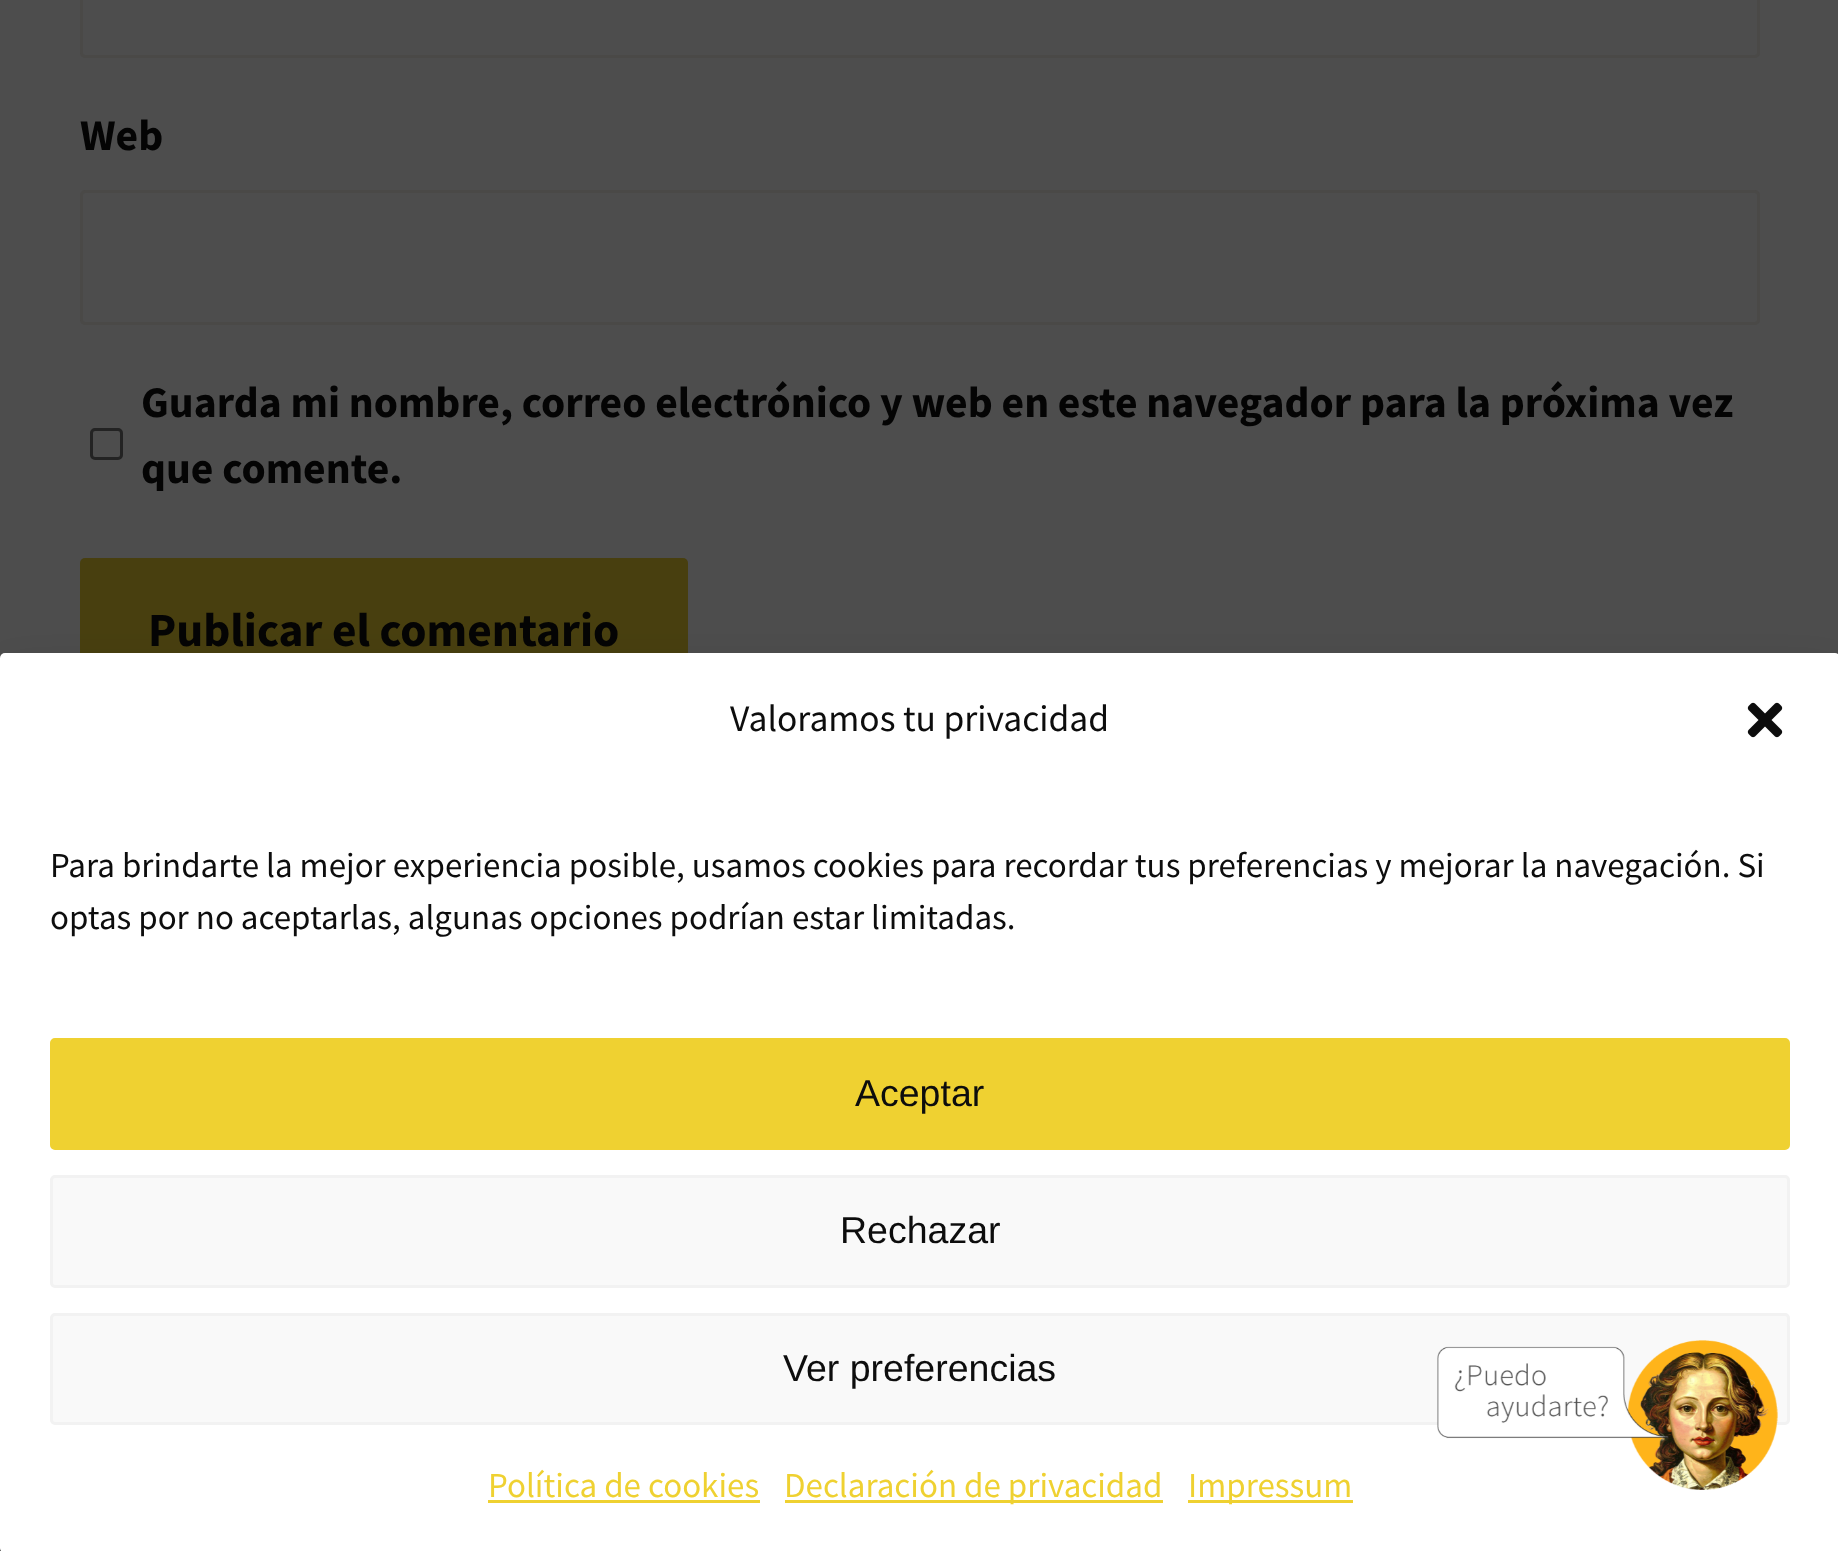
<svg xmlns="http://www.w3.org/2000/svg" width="1838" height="1551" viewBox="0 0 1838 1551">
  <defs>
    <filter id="blur1" x="-50%" y="-200%" width="200%" height="500%"><feGaussianBlur stdDeviation="7.5"/></filter>
    <filter id="blur2" x="-50%" y="-200%" width="200%" height="500%"><feGaussianBlur stdDeviation="25"/></filter>
  </defs>
  <rect width="100%" height="100%" fill="#4d4d4d"/>
  <rect x="81.5" y="-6.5" width="1677" height="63" rx="3.5" fill="none" stroke="#4a4947" stroke-width="3"/>
  <text x="80" y="150" font-family="Source Sans Pro" font-size="43.7" font-weight="bold" fill="#040404">Web</text>
  <rect x="81.5" y="191.5" width="1677" height="132" rx="3.5" fill="none" stroke="#4a4947" stroke-width="3"/>
  <rect x="91.5" y="429.5" width="30" height="29" rx="3.5" fill="none" stroke="#232323" stroke-width="3"/>
  <text x="141" y="417" font-family="Source Sans Pro" font-size="43.7" font-weight="bold" fill="#040404">Guarda mi nombre, correo electrónico y web en este navegador para la próxima vez</text>
  <text x="141" y="483" font-family="Source Sans Pro" font-size="43.7" font-weight="bold" fill="#040404">que comente.</text>
  <rect x="80" y="558" width="608" height="142" rx="5" fill="#483f0f"/>
  <text x="148" y="646" font-family="Source Sans Pro" font-size="47.4" font-weight="bold" fill="#040404">Publicar el comentario</text>
  <rect x="0" y="668" width="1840" height="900" rx="5" fill="#000000" fill-opacity="0.23" filter="url(#blur1)"/>
  <rect x="0" y="678" width="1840" height="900" rx="5" fill="#000000" fill-opacity="0.19" filter="url(#blur2)"/>
  <rect x="0" y="653" width="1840" height="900" rx="5" fill="#ffffff"/>
  <rect x="51.5" y="1314.5" width="1737" height="109" rx="3.5" fill="#f9f9f9" stroke="#f2f2f2" stroke-width="3"/>
  <image x="1437" y="1340" width="341" height="150" href="img1.png"/>
  <text x="730" y="731" font-family="Source Sans Pro" font-size="37.5" fill="#0d0d0d">Valoramos tu privacidad</text>
  <image x="1747" y="702" width="36" height="36" href="img2.png"/>
  <text x="50" y="877" font-family="Source Sans Pro" font-size="35" fill="#0d0d0d">Para brindarte la mejor experiencia posible, usamos cookies para recordar tus preferencias y mejorar la navegación. Si</text>
  <text x="50" y="929" font-family="Source Sans Pro" font-size="35" fill="#0d0d0d">optas por no aceptarlas, algunas opciones podrían estar limitadas.</text>
  <rect x="51.5" y="1039.5" width="1737" height="109" rx="3.5" fill="#efd131" stroke="#efd131" stroke-width="3"/>
  <text x="855" y="1106" font-family="Liberation Sans" font-size="37.5" fill="#0d0d0d">Aceptar</text>
  <rect x="51.5" y="1176.5" width="1737" height="110" rx="3.5" fill="#f9f9f9" stroke="#f2f2f2" stroke-width="3"/>
  <text x="840" y="1243" font-family="Liberation Sans" font-size="37.5" fill="#0d0d0d">Rechazar</text>
  <text x="783" y="1381" font-family="Liberation Sans" font-size="37.5" fill="#0d0d0d">Ver preferencias</text>
  <text x="488" y="1497" font-family="Source Sans Pro" font-size="35" fill="#efd131">Política de cookies</text>
  <rect x="488" y="1500" width="272" height="3" fill="#efd131"/>
  <rect x="785" y="1500" width="378" height="3" fill="#efd131"/>
  <text x="784" y="1497" font-family="Source Sans Pro" font-size="35" fill="#efd131">Declaración de privacidad</text>
  <rect x="1188" y="1500" width="165" height="3" fill="#efd131"/>
  <text x="1188" y="1497" font-family="Source Sans Pro" font-size="35" fill="#efd131">Impressum</text>
</svg>
